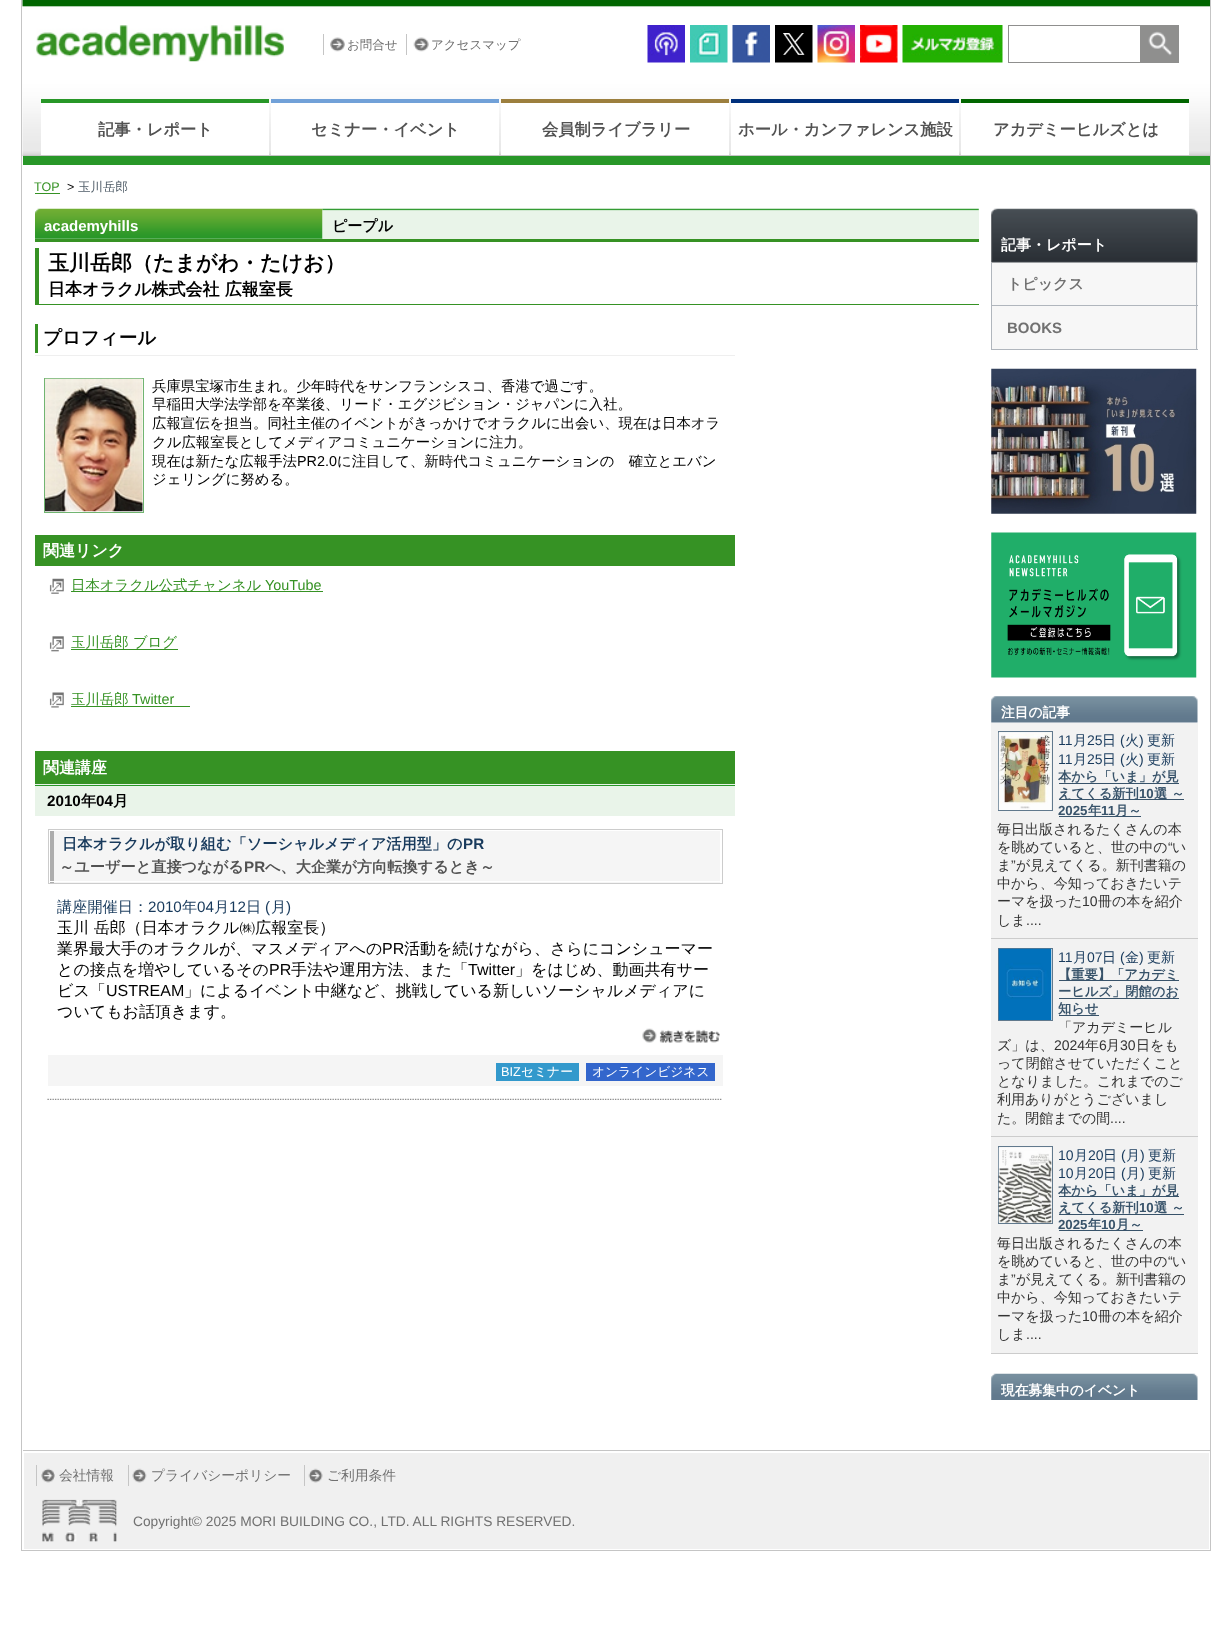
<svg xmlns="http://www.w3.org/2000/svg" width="1231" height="1629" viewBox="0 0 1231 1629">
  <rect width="100%" height="100%" fill="#ffffff"/>
  <rect x="1210" y="0" width="1" height="1551" fill="#c5c5c5"/>
  <rect x="21" y="1550" width="1190" height="1" fill="#c5c5c5"/>
  <rect x="21" y="0" width="1" height="1551" fill="#c5c5c5"/>
  <image x="22" y="0" width="1188" height="157" href="img1.png"/>
  <image x="36" y="25" width="248" height="37" href="img2.png"/>
  <rect x="323" y="34" width="1" height="21" fill="#c5c5c5"/>
  <image x="330" y="37" width="15" height="15" href="img3.png"/>
  <text x="347" y="49" font-family="WenQuanYi Zen Hei" font-size="12.5" font-weight="500" fill="#717171">お問合せ</text>
  <rect x="406" y="34" width="1" height="21" fill="#c5c5c5"/>
  <image x="413" y="37" width="16" height="15" href="img4.png"/>
  <text x="431" y="49" font-family="WenQuanYi Zen Hei" font-size="12.5" font-weight="500" fill="#717171">アクセスマップ</text>
  <image x="647" y="25" width="38" height="38" href="img5.png"/>
  <image x="690" y="25" width="38" height="38" href="img6.png"/>
  <image x="732" y="25" width="38" height="38" href="img7.png"/>
  <image x="775" y="25" width="38" height="38" href="img8.png"/>
  <image x="817" y="25" width="38" height="38" href="img9.png"/>
  <image x="860" y="25" width="38" height="38" href="img10.png"/>
  <image x="902" y="25" width="101" height="38" href="img11.png"/>
  <rect x="1008.5" y="25.5" width="132" height="37" fill="none" stroke="#8f8f8e"/>
  <rect x="1141" y="25" width="38" height="38" fill="#8f8f8e"/>
  <image x="1148" y="31" width="24" height="25" href="img12.png"/>
  <rect x="41" y="103" width="228" height="52" fill="#ffffff"/>
  <rect x="41" y="99" width="228" height="4" fill="#289728"/>
  <text x="98" y="135" font-family="WenQuanYi Zen Hei" font-size="16.25" font-weight="bold" fill="#525252">記事・レポート</text>
  <rect x="271" y="103" width="228" height="52" fill="#ffffff"/>
  <rect x="271" y="99" width="228" height="4" fill="#71a1d8"/>
  <text x="311" y="135" font-family="WenQuanYi Zen Hei" font-size="16.25" font-weight="bold" fill="#525252">セミナー・イベント</text>
  <rect x="501" y="103" width="228" height="52" fill="#ffffff"/>
  <rect x="501" y="99" width="228" height="4" fill="#9c7f3e"/>
  <text x="542" y="135" font-family="WenQuanYi Zen Hei" font-size="16.25" font-weight="bold" fill="#525252">会員制ライブラリー</text>
  <rect x="731" y="103" width="228" height="52" fill="#ffffff"/>
  <rect x="731" y="99" width="228" height="4" fill="#00307c"/>
  <text x="738" y="135" font-family="WenQuanYi Zen Hei" font-size="16.25" font-weight="bold" fill="#525252">ホール・カンファレンス施設</text>
  <rect x="961" y="103" width="228" height="52" fill="#ffffff"/>
  <rect x="961" y="99" width="228" height="4" fill="#016600"/>
  <text x="993" y="135" font-family="WenQuanYi Zen Hei" font-size="16.25" font-weight="bold" fill="#525252">アカデミーヒルズとは</text>
  <rect x="23" y="156" width="1187" height="9" fill="#289728"/>
  <text x="34" y="191" font-family="Liberation Sans" font-size="12.5" fill="#369224">TOP</text>
  <rect x="35" y="193" width="25" height="1" fill="#369224"/>
  <text x="67" y="191" font-family="Liberation Sans" font-size="12.5" fill="#000000">&gt;</text>
  <text x="78" y="191" font-family="WenQuanYi Zen Hei" font-size="12.5" font-weight="500" fill="#505d68">玉川岳郎</text>
  <rect x="23" y="1450" width="1187" height="1" fill="#c5c5c5"/>
  <rect x="35" y="209" width="944" height="30" fill="#e9f4e9"/>
  <rect x="35" y="239" width="944" height="3" fill="#369224"/>
  <image x="35" y="208" width="288" height="31" href="img13.png"/>
  <text x="44" y="231" font-family="Liberation Sans" font-size="15" font-weight="bold" fill="#ffffff">academyhills</text>
  <image x="322" y="208" width="657" height="31" href="img14.png"/>
  <text x="332" y="231" font-family="WenQuanYi Zen Hei" font-size="15" font-weight="bold" fill="#000000">ピープル</text>
  <rect x="35" y="304" width="944" height="1" fill="#369224"/>
  <rect x="35" y="248" width="4" height="57" fill="#369224"/>
  <text x="48" y="270" font-family="WenQuanYi Zen Hei" font-size="21" font-weight="bold" fill="#000000">玉川岳郎（たまがわ・たけお）</text>
  <text x="48" y="295" font-family="WenQuanYi Zen Hei" font-size="17" font-weight="bold" fill="#000000">日本オラクル株式会社 広報室長</text>
  <rect x="35" y="355" width="700" height="1" fill="#efefef"/>
  <rect x="35" y="324" width="3" height="29" fill="#369224"/>
  <text x="43" y="344" font-family="WenQuanYi Zen Hei" font-size="18.5" font-weight="bold" fill="#000000">プロフィール</text>
  <rect x="44.5" y="378.5" width="99" height="134" fill="none" stroke="#71b571"/>
  <image x="45" y="378" width="98" height="134" href="img15.png"/>
  <text x="152" y="391" font-family="WenQuanYi Zen Hei" font-size="14.4" font-weight="500" fill="#000000">兵庫県宝塚市生まれ。少年時代をサンフランシスコ、香港で過ごす。</text>
  <text x="152" y="409" font-family="WenQuanYi Zen Hei" font-size="14.4" font-weight="500" fill="#000000">早稲田大学法学部を卒業後、リード・エグジビション・ジャパンに入社。</text>
  <text x="152" y="428" font-family="WenQuanYi Zen Hei" font-size="14.4" font-weight="500" fill="#000000">広報宣伝を担当。同社主催のイベントがきっかけでオラクルに出会い、現在は日本オラ</text>
  <text x="152" y="447" font-family="WenQuanYi Zen Hei" font-size="14.4" font-weight="500" fill="#000000">クル広報室長としてメディアコミュニケーションに注力。</text>
  <text x="152" y="466" font-family="WenQuanYi Zen Hei" font-size="14.4" font-weight="500" fill="#000000">現在は新たな広報手法</text>
  <text x="297" y="466" font-family="Liberation Sans" font-size="14.4" fill="#000000">PR2.0</text>
  <text x="337" y="466" font-family="WenQuanYi Zen Hei" font-size="14.4" font-weight="500" fill="#000000">に注目して、新時代コミュニケーションの　確立とエバン</text>
  <text x="152" y="484" font-family="WenQuanYi Zen Hei" font-size="14.4" font-weight="500" fill="#000000">ジェリングに努める。</text>
  <rect x="35" y="535" width="700" height="31" fill="#369224"/>
  <text x="43" y="556" font-family="WenQuanYi Zen Hei" font-size="16" font-weight="bold" fill="#ffffff">関連リンク</text>
  <image x="49" y="578" width="15" height="16" href="img16.png"/>
  <rect x="71" y="591" width="252" height="1" fill="#369224"/>
  <text x="71" y="590" font-family="WenQuanYi Zen Hei" font-size="14.4" font-weight="500" fill="#369224">日本オラクル公式チャンネル</text>
  <text x="265" y="590" font-family="Liberation Sans" font-size="14.4" fill="#369224">YouTube</text>
  <image x="49" y="636" width="15" height="16" href="img17.png"/>
  <text x="71" y="647" font-family="WenQuanYi Zen Hei" font-size="14.4" font-weight="500" fill="#369224">玉川岳郎 ブログ</text>
  <rect x="71" y="649" width="107" height="1" fill="#369224"/>
  <image x="49" y="692" width="15" height="16" href="img18.png"/>
  <text x="71" y="704" font-family="WenQuanYi Zen Hei" font-size="14.4" font-weight="500" fill="#369224">玉川岳郎</text>
  <text x="132" y="704" font-family="Liberation Sans" font-size="14.4" fill="#369224">Twitter</text>
  <rect x="71" y="706" width="119" height="1" fill="#369224"/>
  <rect x="35" y="751" width="700" height="33" fill="#369224"/>
  <text x="43" y="773" font-family="WenQuanYi Zen Hei" font-size="16" font-weight="bold" fill="#ffffff">関連講座</text>
  <rect x="35" y="784" width="700" height="1" fill="#e9f4e9"/>
  <rect x="35" y="786" width="700" height="30" fill="#e9f4e9"/>
  <rect x="35" y="785" width="700" height="1" fill="#289728"/>
  <text x="47" y="806" font-family="Liberation Sans" font-size="15.2" font-weight="bold" fill="#000000">2010</text>
  <text x="81" y="806" font-family="WenQuanYi Zen Hei" font-size="15.2" font-weight="bold" fill="#000000">年</text>
  <text x="96" y="806" font-family="Liberation Sans" font-size="15.2" font-weight="bold" fill="#000000">04</text>
  <text x="113" y="806" font-family="WenQuanYi Zen Hei" font-size="15.2" font-weight="bold" fill="#000000">月</text>
  <rect x="48.5" y="829.5" width="674" height="54" fill="none" stroke="#cccccc"/>
  <rect x="54" y="831" width="666" height="52" fill="#f5f5f5"/>
  <rect x="50" y="830" width="4" height="53" fill="#adadad"/>
  <rect x="49" y="830" width="5" height="1" fill="#ffffff"/>
  <text x="62" y="849" font-family="WenQuanYi Zen Hei" font-size="15.2" font-weight="bold" fill="#183a5c">日本オラクルが取り組む「ソーシャルメディア活用型」の</text>
  <text x="463" y="849" font-family="Liberation Sans" font-size="15.2" font-weight="bold" fill="#183a5c">PR</text>
  <rect x="49" y="881" width="672" height="1" fill="#ffffff"/>
  <text x="59" y="872" font-family="WenQuanYi Zen Hei" font-size="15.2" font-weight="bold" fill="#525252">～ユーザーと直接つながる</text>
  <text x="244" y="872" font-family="Liberation Sans" font-size="15.2" font-weight="bold" fill="#525252">PR</text>
  <text x="265" y="872" font-family="WenQuanYi Zen Hei" font-size="15.2" font-weight="bold" fill="#525252">へ、大企業が方向転換するとき～</text>
  <text x="57" y="912" font-family="WenQuanYi Zen Hei" font-size="15.2" font-weight="500" fill="#183a5c">講座開催日：</text>
  <text x="148" y="912" font-family="Liberation Sans" font-size="15.2" fill="#183a5c">2010</text>
  <text x="182" y="912" font-family="WenQuanYi Zen Hei" font-size="15.2" font-weight="500" fill="#183a5c">年</text>
  <text x="197" y="912" font-family="Liberation Sans" font-size="15.2" fill="#183a5c">04</text>
  <text x="214" y="912" font-family="WenQuanYi Zen Hei" font-size="15.2" font-weight="500" fill="#183a5c">月</text>
  <text x="229" y="912" font-family="Liberation Sans" font-size="15.2" fill="#183a5c">12</text>
  <text x="246" y="912" font-family="WenQuanYi Zen Hei" font-size="15.2" font-weight="500" fill="#183a5c">日</text>
  <text x="265" y="912" font-family="Liberation Sans" font-size="15.2" fill="#183a5c">(</text>
  <text x="271" y="912" font-family="WenQuanYi Zen Hei" font-size="15.2" font-weight="500" fill="#183a5c">月</text>
  <text x="286" y="912" font-family="Liberation Sans" font-size="15.2" fill="#183a5c">)</text>
  <text x="57" y="933" font-family="WenQuanYi Zen Hei" font-size="16" font-weight="500" fill="#000000">玉川 岳郎（日本オラクル㈱広報室長）</text>
  <text x="57" y="954" font-family="WenQuanYi Zen Hei" font-size="16" font-weight="500" fill="#000000">業界最大手のオラクルが、マスメディアへの</text>
  <text x="382" y="954" font-family="Liberation Sans" font-size="16" fill="#000000">PR</text>
  <text x="404" y="954" font-family="WenQuanYi Zen Hei" font-size="16" font-weight="500" fill="#000000">活動を続けながら、さらにコンシューマー</text>
  <text x="57" y="975" font-family="WenQuanYi Zen Hei" font-size="16" font-weight="500" fill="#000000">との接点を増やしているその</text>
  <text x="269" y="975" font-family="Liberation Sans" font-size="16" fill="#000000">PR</text>
  <text x="291" y="975" font-family="WenQuanYi Zen Hei" font-size="16" font-weight="500" fill="#000000">手法や運用方法、また「</text>
  <text x="468" y="975" font-family="Liberation Sans" font-size="16" fill="#000000">Twitter</text>
  <text x="515" y="975" font-family="WenQuanYi Zen Hei" font-size="16" font-weight="500" fill="#000000">」をはじめ、動画共有サー</text>
  <text x="57" y="996" font-family="WenQuanYi Zen Hei" font-size="16" font-weight="500" fill="#000000">ビス「</text>
  <text x="106" y="996" font-family="Liberation Sans" font-size="16" fill="#000000">USTREAM</text>
  <text x="184" y="996" font-family="WenQuanYi Zen Hei" font-size="16" font-weight="500" fill="#000000">」によるイベント中継など、挑戦している新しいソーシャルメディアに</text>
  <text x="57" y="1017" font-family="WenQuanYi Zen Hei" font-size="16" font-weight="500" fill="#000000">ついてもお話頂きます。</text>
  <image x="642" y="1028" width="78" height="15" href="img19.png"/>
  <rect x="48" y="1055" width="675" height="31" fill="#f5f5f5"/>
  <rect x="496" y="1063" width="83" height="18" fill="#3399cc"/>
  <text x="501" y="1076" font-family="Liberation Sans" font-size="12.75" fill="#ffffff">BIZ</text>
  <text x="521" y="1076" font-family="WenQuanYi Zen Hei" font-size="12.75" font-weight="500" fill="#ffffff">セミナー</text>
  <rect x="586" y="1063" width="129" height="18" fill="#3366cc"/>
  <text x="592" y="1076" font-family="WenQuanYi Zen Hei" font-size="12.75" font-weight="500" fill="#ffffff">オンラインビジネス</text>
  <image x="47" y="1098" width="675" height="2" href="img20.png"/>
  <image x="991" y="208" width="207" height="55" href="img21.png"/>
  <text x="1001" y="250" font-family="WenQuanYi Zen Hei" font-size="15" font-weight="bold" fill="#ffffff">記事・レポート</text>
  <rect x="992" y="263" width="206" height="42" fill="#f7f7f7"/>
  <rect x="1196" y="263" width="1" height="43" fill="#b0b6bd"/>
  <rect x="991" y="305" width="207" height="1" fill="#b0b6bd"/>
  <rect x="991" y="263" width="1" height="43" fill="#b0b6bd"/>
  <text x="1007" y="289" font-family="WenQuanYi Zen Hei" font-size="15" font-weight="bold" fill="#717171">トピックス</text>
  <rect x="992" y="306" width="206" height="43" fill="#f7f7f7"/>
  <rect x="1196" y="306" width="1" height="44" fill="#b0b6bd"/>
  <rect x="991" y="349" width="207" height="1" fill="#b0b6bd"/>
  <rect x="991" y="306" width="1" height="44" fill="#b0b6bd"/>
  <text x="1007" y="333" font-family="Liberation Sans" font-size="15" font-weight="bold" fill="#717171">BOOKS</text>
  <image x="991" y="368" width="206" height="146" href="img22.png"/>
  <image x="991" y="532" width="206" height="146" href="img23.png"/>
  <image x="991" y="696" width="207" height="27" href="img24.png"/>
  <text x="1001" y="717" font-family="WenQuanYi Zen Hei" font-size="13.75" font-weight="bold" fill="#ffffff">注目の記事</text>
  <rect x="991" y="723" width="207" height="215" fill="#f2f2f2"/>
  <rect x="991" y="938" width="207" height="1" fill="#cccccc"/>
  <rect x="998.5" y="731.5" width="54" height="79" fill="none" stroke="#61798d"/>
  <image x="998" y="732" width="53" height="78" href="img25.png"/>
  <text x="1058" y="745" font-family="Liberation Sans" font-size="14" fill="#183a5c">11</text>
  <text x="1073" y="745" font-family="WenQuanYi Zen Hei" font-size="14" font-weight="500" fill="#183a5c">月</text>
  <text x="1087" y="745" font-family="Liberation Sans" font-size="14" fill="#183a5c">25</text>
  <text x="1102" y="745" font-family="WenQuanYi Zen Hei" font-size="14" font-weight="500" fill="#183a5c">日</text>
  <text x="1120" y="745" font-family="Liberation Sans" font-size="14" fill="#183a5c">(</text>
  <text x="1125" y="745" font-family="WenQuanYi Zen Hei" font-size="14" font-weight="500" fill="#183a5c">火</text>
  <text x="1139" y="745" font-family="Liberation Sans" font-size="14" fill="#183a5c">)</text>
  <text x="1147" y="745" font-family="WenQuanYi Zen Hei" font-size="14" font-weight="500" fill="#183a5c">更新</text>
  <text x="1058" y="764" font-family="Liberation Sans" font-size="14" fill="#183a5c">11</text>
  <text x="1073" y="764" font-family="WenQuanYi Zen Hei" font-size="14" font-weight="500" fill="#183a5c">月</text>
  <text x="1087" y="764" font-family="Liberation Sans" font-size="14" fill="#183a5c">25</text>
  <text x="1102" y="764" font-family="WenQuanYi Zen Hei" font-size="14" font-weight="500" fill="#183a5c">日</text>
  <text x="1120" y="764" font-family="Liberation Sans" font-size="14" fill="#183a5c">(</text>
  <text x="1125" y="764" font-family="WenQuanYi Zen Hei" font-size="14" font-weight="500" fill="#183a5c">火</text>
  <text x="1139" y="764" font-family="Liberation Sans" font-size="14" fill="#183a5c">)</text>
  <text x="1147" y="764" font-family="WenQuanYi Zen Hei" font-size="14" font-weight="500" fill="#183a5c">更新</text>
  <text x="1058" y="781" font-family="WenQuanYi Zen Hei" font-size="13.25" font-weight="bold" fill="#38536a">本から「いま」が見</text>
  <rect x="1059" y="783" width="120" height="1" fill="#38536a"/>
  <rect x="1059" y="799" width="125" height="1" fill="#38536a"/>
  <text x="1058" y="798" font-family="WenQuanYi Zen Hei" font-size="13.25" font-weight="bold" fill="#38536a">えてくる新刊</text>
  <text x="1139" y="798" font-family="Liberation Sans" font-size="13.25" font-weight="bold" fill="#38536a">10</text>
  <text x="1154" y="798" font-family="WenQuanYi Zen Hei" font-size="13.25" font-weight="bold" fill="#38536a">選 ～</text>
  <text x="1058" y="815" font-family="Liberation Sans" font-size="13.25" font-weight="bold" fill="#38536a">2025</text>
  <rect x="1059" y="816" width="82" height="1" fill="#38536a"/>
  <text x="1088" y="815" font-family="WenQuanYi Zen Hei" font-size="13.25" font-weight="bold" fill="#38536a">年</text>
  <text x="1101" y="815" font-family="Liberation Sans" font-size="13.25" font-weight="bold" fill="#38536a">11</text>
  <text x="1115" y="815" font-family="WenQuanYi Zen Hei" font-size="13.25" font-weight="bold" fill="#38536a">月～</text>
  <text x="997" y="834" font-family="WenQuanYi Zen Hei" font-size="14" font-weight="500" fill="#333333">毎日出版されるたくさんの本</text>
  <text x="997" y="852" font-family="WenQuanYi Zen Hei" font-size="14" font-weight="500" fill="#333333">を眺めていると、世の中の</text>
  <text x="1168" y="852" font-family="Liberation Sans" font-size="14" fill="#333333">“</text>
  <text x="1172" y="852" font-family="WenQuanYi Zen Hei" font-size="14" font-weight="500" fill="#333333">い</text>
  <text x="997" y="870" font-family="WenQuanYi Zen Hei" font-size="14" font-weight="500" fill="#333333">ま</text>
  <text x="1011" y="870" font-family="Liberation Sans" font-size="14" fill="#333333">”</text>
  <text x="1016" y="870" font-family="WenQuanYi Zen Hei" font-size="14" font-weight="500" fill="#333333">が見えてくる。新刊書籍の</text>
  <text x="997" y="888" font-family="WenQuanYi Zen Hei" font-size="14" font-weight="500" fill="#333333">中から、今知っておきたいテ</text>
  <text x="997" y="906" font-family="WenQuanYi Zen Hei" font-size="14" font-weight="500" fill="#333333">ーマを扱った</text>
  <text x="1082" y="906" font-family="Liberation Sans" font-size="14" fill="#333333">10</text>
  <text x="1098" y="906" font-family="WenQuanYi Zen Hei" font-size="14" font-weight="500" fill="#333333">冊の本を紹介</text>
  <text x="997" y="925" font-family="WenQuanYi Zen Hei" font-size="14" font-weight="500" fill="#333333">しま</text>
  <text x="1026" y="925" font-family="Liberation Sans" font-size="14" fill="#333333">....</text>
  <rect x="991" y="939" width="207" height="414" fill="#f2f2f2"/>
  <rect x="991" y="1136" width="207" height="1" fill="#cccccc"/>
  <rect x="998.5" y="948.5" width="54" height="72" fill="none" stroke="#61798d"/>
  <image x="998" y="948" width="54" height="72" href="img26.png"/>
  <text x="1058" y="962" font-family="Liberation Sans" font-size="14" fill="#183a5c">11</text>
  <text x="1073" y="962" font-family="WenQuanYi Zen Hei" font-size="14" font-weight="500" fill="#183a5c">月</text>
  <text x="1087" y="962" font-family="Liberation Sans" font-size="14" fill="#183a5c">07</text>
  <text x="1102" y="962" font-family="WenQuanYi Zen Hei" font-size="14" font-weight="500" fill="#183a5c">日</text>
  <text x="1120" y="962" font-family="Liberation Sans" font-size="14" fill="#183a5c">(</text>
  <text x="1125" y="962" font-family="WenQuanYi Zen Hei" font-size="14" font-weight="500" fill="#183a5c">金</text>
  <text x="1139" y="962" font-family="Liberation Sans" font-size="14" fill="#183a5c">)</text>
  <text x="1147" y="962" font-family="WenQuanYi Zen Hei" font-size="14" font-weight="500" fill="#183a5c">更新</text>
  <rect x="1059" y="980" width="120" height="1" fill="#38536a"/>
  <text x="1058" y="979" font-family="WenQuanYi Zen Hei" font-size="13.25" font-weight="bold" fill="#38536a">【重要】「アカデミ</text>
  <text x="1058" y="996" font-family="WenQuanYi Zen Hei" font-size="13.25" font-weight="bold" fill="#38536a">ーヒルズ」閉館のお</text>
  <rect x="1059" y="998" width="120" height="1" fill="#38536a"/>
  <text x="1058" y="1013" font-family="WenQuanYi Zen Hei" font-size="13.25" font-weight="bold" fill="#38536a">知らせ</text>
  <rect x="1059" y="1015" width="40" height="1" fill="#38536a"/>
  <text x="1058" y="1032" font-family="WenQuanYi Zen Hei" font-size="14" font-weight="500" fill="#333333">「アカデミーヒル</text>
  <text x="997" y="1050" font-family="WenQuanYi Zen Hei" font-size="14" font-weight="500" fill="#333333">ズ」は、</text>
  <text x="1054" y="1050" font-family="Liberation Sans" font-size="14" fill="#333333">2024</text>
  <text x="1085" y="1050" font-family="WenQuanYi Zen Hei" font-size="14" font-weight="500" fill="#333333">年</text>
  <text x="1099" y="1050" font-family="Liberation Sans" font-size="14" fill="#333333">6</text>
  <text x="1106" y="1050" font-family="WenQuanYi Zen Hei" font-size="14" font-weight="500" fill="#333333">月</text>
  <text x="1120" y="1050" font-family="Liberation Sans" font-size="14" fill="#333333">30</text>
  <text x="1136" y="1050" font-family="WenQuanYi Zen Hei" font-size="14" font-weight="500" fill="#333333">日をも</text>
  <text x="997" y="1068" font-family="WenQuanYi Zen Hei" font-size="14" font-weight="500" fill="#333333">って閉館させていただくこと</text>
  <text x="997" y="1086" font-family="WenQuanYi Zen Hei" font-size="14" font-weight="500" fill="#333333">となりました。これまでのご</text>
  <text x="997" y="1104" font-family="WenQuanYi Zen Hei" font-size="14" font-weight="500" fill="#333333">利用ありがとうございまし</text>
  <text x="997" y="1123" font-family="WenQuanYi Zen Hei" font-size="14" font-weight="500" fill="#333333">た。閉館までの間</text>
  <text x="1110" y="1123" font-family="Liberation Sans" font-size="14" fill="#333333">....</text>
  <rect x="991" y="1353" width="207" height="1" fill="#cccccc"/>
  <rect x="998.5" y="1146.5" width="54" height="77" fill="none" stroke="#61798d"/>
  <image x="998" y="1147" width="54" height="76" href="img27.png"/>
  <text x="1058" y="1160" font-family="Liberation Sans" font-size="14" fill="#183a5c">10</text>
  <text x="1074" y="1160" font-family="WenQuanYi Zen Hei" font-size="14" font-weight="500" fill="#183a5c">月</text>
  <text x="1088" y="1160" font-family="Liberation Sans" font-size="14" fill="#183a5c">20</text>
  <text x="1103" y="1160" font-family="WenQuanYi Zen Hei" font-size="14" font-weight="500" fill="#183a5c">日</text>
  <text x="1121" y="1160" font-family="Liberation Sans" font-size="14" fill="#183a5c">(</text>
  <text x="1126" y="1160" font-family="WenQuanYi Zen Hei" font-size="14" font-weight="500" fill="#183a5c">月</text>
  <text x="1140" y="1160" font-family="Liberation Sans" font-size="14" fill="#183a5c">)</text>
  <text x="1148" y="1160" font-family="WenQuanYi Zen Hei" font-size="14" font-weight="500" fill="#183a5c">更新</text>
  <text x="1058" y="1178" font-family="Liberation Sans" font-size="14" fill="#183a5c">10</text>
  <text x="1074" y="1178" font-family="WenQuanYi Zen Hei" font-size="14" font-weight="500" fill="#183a5c">月</text>
  <text x="1088" y="1178" font-family="Liberation Sans" font-size="14" fill="#183a5c">20</text>
  <text x="1103" y="1178" font-family="WenQuanYi Zen Hei" font-size="14" font-weight="500" fill="#183a5c">日</text>
  <text x="1121" y="1178" font-family="Liberation Sans" font-size="14" fill="#183a5c">(</text>
  <text x="1126" y="1178" font-family="WenQuanYi Zen Hei" font-size="14" font-weight="500" fill="#183a5c">月</text>
  <text x="1140" y="1178" font-family="Liberation Sans" font-size="14" fill="#183a5c">)</text>
  <text x="1148" y="1178" font-family="WenQuanYi Zen Hei" font-size="14" font-weight="500" fill="#183a5c">更新</text>
  <rect x="1059" y="1196" width="120" height="1" fill="#38536a"/>
  <text x="1058" y="1195" font-family="WenQuanYi Zen Hei" font-size="13.25" font-weight="bold" fill="#38536a">本から「いま」が見</text>
  <rect x="1059" y="1214" width="125" height="1" fill="#38536a"/>
  <text x="1058" y="1212" font-family="WenQuanYi Zen Hei" font-size="13.25" font-weight="bold" fill="#38536a">えてくる新刊</text>
  <text x="1139" y="1212" font-family="Liberation Sans" font-size="13.25" font-weight="bold" fill="#38536a">10</text>
  <text x="1154" y="1212" font-family="WenQuanYi Zen Hei" font-size="13.25" font-weight="bold" fill="#38536a">選 ～</text>
  <text x="1058" y="1229" font-family="Liberation Sans" font-size="13.25" font-weight="bold" fill="#38536a">2025</text>
  <rect x="1059" y="1230" width="84" height="1" fill="#38536a"/>
  <text x="1088" y="1229" font-family="WenQuanYi Zen Hei" font-size="13.25" font-weight="bold" fill="#38536a">年</text>
  <text x="1101" y="1229" font-family="Liberation Sans" font-size="13.25" font-weight="bold" fill="#38536a">10</text>
  <text x="1116" y="1229" font-family="WenQuanYi Zen Hei" font-size="13.25" font-weight="bold" fill="#38536a">月～</text>
  <text x="997" y="1248" font-family="WenQuanYi Zen Hei" font-size="14" font-weight="500" fill="#333333">毎日出版されるたくさんの本</text>
  <text x="997" y="1266" font-family="WenQuanYi Zen Hei" font-size="14" font-weight="500" fill="#333333">を眺めていると、世の中の</text>
  <text x="1168" y="1266" font-family="Liberation Sans" font-size="14" fill="#333333">“</text>
  <text x="1172" y="1266" font-family="WenQuanYi Zen Hei" font-size="14" font-weight="500" fill="#333333">い</text>
  <text x="997" y="1284" font-family="WenQuanYi Zen Hei" font-size="14" font-weight="500" fill="#333333">ま</text>
  <text x="1011" y="1284" font-family="Liberation Sans" font-size="14" fill="#333333">”</text>
  <text x="1016" y="1284" font-family="WenQuanYi Zen Hei" font-size="14" font-weight="500" fill="#333333">が見えてくる。新刊書籍の</text>
  <text x="997" y="1302" font-family="WenQuanYi Zen Hei" font-size="14" font-weight="500" fill="#333333">中から、今知っておきたいテ</text>
  <text x="997" y="1321" font-family="WenQuanYi Zen Hei" font-size="14" font-weight="500" fill="#333333">ーマを扱った</text>
  <text x="1082" y="1321" font-family="Liberation Sans" font-size="14" fill="#333333">10</text>
  <text x="1098" y="1321" font-family="WenQuanYi Zen Hei" font-size="14" font-weight="500" fill="#333333">冊の本を紹介</text>
  <text x="997" y="1339" font-family="WenQuanYi Zen Hei" font-size="14" font-weight="500" fill="#333333">しま</text>
  <text x="1026" y="1339" font-family="Liberation Sans" font-size="14" fill="#333333">....</text>
  <image x="991" y="1373" width="207" height="27" href="img28.png"/>
  <text x="1001" y="1395" font-family="WenQuanYi Zen Hei" font-size="13.75" font-weight="bold" fill="#ffffff">現在募集中のイベント</text>
  <rect x="24" y="1453" width="1185" height="96" fill="#f0f0f0"/>
  <rect x="36" y="1465" width="1" height="21" fill="#c5c5c5"/>
  <image x="41" y="1468" width="14" height="15" href="img29.png"/>
  <text x="59" y="1480" font-family="WenQuanYi Zen Hei" font-size="13.75" font-weight="500" fill="#717171">会社情報</text>
  <rect x="128" y="1465" width="1" height="21" fill="#c5c5c5"/>
  <image x="132" y="1468" width="15" height="15" href="img30.png"/>
  <text x="151" y="1480" font-family="WenQuanYi Zen Hei" font-size="13.75" font-weight="500" fill="#717171">プライバシーポリシー</text>
  <rect x="304" y="1465" width="1" height="21" fill="#c5c5c5"/>
  <image x="308" y="1468" width="15" height="15" href="img31.png"/>
  <text x="327" y="1480" font-family="WenQuanYi Zen Hei" font-size="13.75" font-weight="500" fill="#717171">ご利用条件</text>
  <image x="42" y="1499" width="75" height="43" href="img32.png"/>
  <text x="133" y="1526" font-family="Liberation Sans" font-size="13.75" fill="#717171">Copyright© 2025 MORI BUILDING CO., LTD. ALL RIGHTS RESERVED.</text>
</svg>
